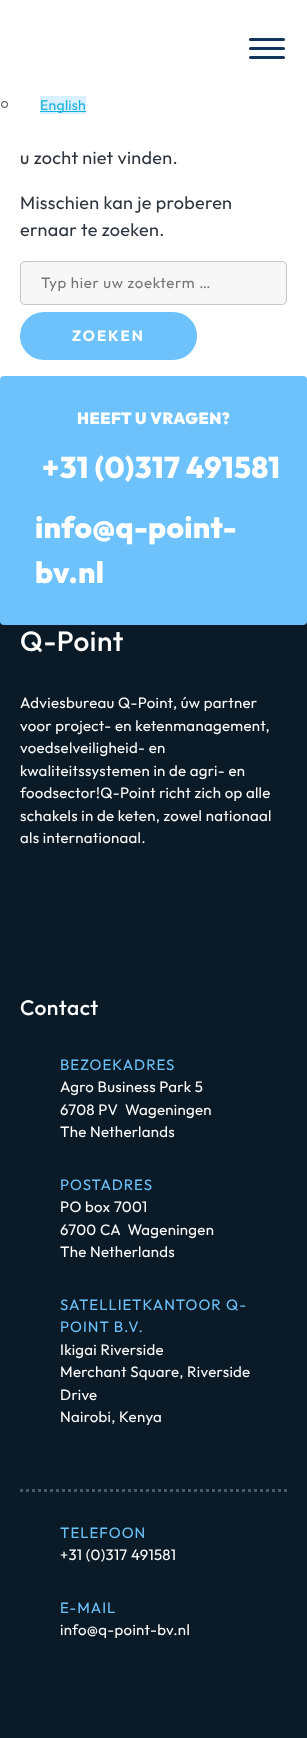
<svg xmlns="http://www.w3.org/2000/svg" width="307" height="1738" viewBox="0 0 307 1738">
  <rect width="100%" height="100%" fill="#ffffff"/>
  <rect x="249" y="47" width="36" height="3" rx="1.5" fill="#143559"/>
  <rect x="249" y="38" width="36" height="3" rx="1.5" fill="#143559"/>
  <rect x="249" y="56" width="36" height="3" rx="1.5" fill="#143559"/>
  <circle cx="4.5" cy="104.5" r="3" fill="none" stroke="#2e353e"/>
  <rect x="40" y="96" width="46" height="18" fill="#d9f0fe"/>
  <rect x="40" y="111" width="46" height="1" fill="#17b0df"/>
  <text x="40" y="110" font-family="Outfit" font-size="14" letter-spacing="0.3" fill="#17b0df">English</text>
  <text x="20" y="164" font-family="Outfit" font-size="18" letter-spacing="0.3" fill="#2e353e">u zocht niet vinden.</text>
  <text x="20" y="209" font-family="Outfit" font-size="18" letter-spacing="0.3" fill="#2e353e">Misschien kan je proberen</text>
  <text x="20" y="236" font-family="Outfit" font-size="18" letter-spacing="0.3" fill="#2e353e">ernaar te zoeken.</text>
  <rect x="20" y="261" width="267" height="44" rx="5" fill="#f7f7f7"/>
  <rect x="20.5" y="261.5" width="266" height="43" rx="4.5" fill="none" stroke="#000000" stroke-opacity="0.2"/>
  <text x="41" y="288" font-family="Outfit" font-size="15" letter-spacing="0.7" fill="#757575">Typ hier uw zoekterm …</text>
  <rect x="21" y="313" width="175" height="46" rx="23" fill="#6dc2fc" stroke="#6dc2fc" stroke-width="2"/>
  <text x="72" y="341" font-family="Outfit" font-size="15" font-weight="bold" letter-spacing="2" fill="#ffffff">ZOEKEN</text>
  <rect x="0" y="621" width="307" height="1117" fill="#0a1b27"/>
  <rect x="0" y="376" width="307" height="249" rx="4" fill="#6dc2fc"/>
  <text x="77" y="424" font-family="Outfit" font-size="16" font-weight="900" letter-spacing="0.5" fill="#ffffff">HEEFT U VRAGEN?</text>
  <text x="42" y="478" font-family="Outfit" font-size="30" font-weight="800" letter-spacing="0.3" fill="#ffffff">+31 (0)317 491581</text>
  <text x="35" y="538" font-family="Outfit" font-size="30" font-weight="800" letter-spacing="0.3" fill="#ffffff">info@q-point-</text>
  <text x="35" y="583" font-family="Outfit" font-size="30" font-weight="800" letter-spacing="0.3" fill="#ffffff">bv.nl</text>
  <text x="20" y="651" font-family="Outfit" font-size="28" font-weight="500" letter-spacing="0.5" fill="#ffffff">Q-Point</text>
  <text x="20" y="708" font-family="Outfit" font-size="15" letter-spacing="0.3" fill="#ffffff">Adviesbureau Q-Point, úw partner</text>
  <text x="20" y="731" font-family="Outfit" font-size="15" letter-spacing="0.3" fill="#ffffff">voor project- en ketenmanagement,</text>
  <text x="20" y="753" font-family="Outfit" font-size="15" letter-spacing="0.3" fill="#ffffff">voedselveiligheid- en</text>
  <text x="20" y="776" font-family="Outfit" font-size="15" letter-spacing="0.3" fill="#ffffff">kwaliteitssystemen in de agri- en</text>
  <text x="20" y="798" font-family="Outfit" font-size="15" letter-spacing="0.3" fill="#ffffff">foodsector!Q-Point richt zich op alle</text>
  <text x="20" y="821" font-family="Outfit" font-size="15" letter-spacing="0.3" fill="#ffffff">schakels in de keten, zowel nationaal</text>
  <text x="20" y="843" font-family="Outfit" font-size="15" letter-spacing="0.3" fill="#ffffff">als internationaal.</text>
  <text x="20" y="1015" font-family="Outfit" font-size="21" font-weight="500" letter-spacing="0.5" fill="#ffffff">Contact</text>
  <path d="M20 1490.5H287" fill="none" stroke="#455a68" stroke-width="3" stroke-dasharray="3 3"/>
  <text x="60" y="1070" font-family="Outfit" font-size="15" letter-spacing="1" fill="#6dc2fc">BEZOEKADRES</text>
  <text x="60" y="1092" font-family="Outfit" font-size="15" letter-spacing="0.3" fill="#ffffff">Agro Business Park 5</text>
  <text x="60" y="1115" font-family="Outfit" font-size="15" letter-spacing="0.3" fill="#ffffff" xml:space="preserve">6708 PV  Wageningen</text>
  <text x="60" y="1137" font-family="Outfit" font-size="15" letter-spacing="0.3" fill="#ffffff">The Netherlands</text>
  <text x="60" y="1190" font-family="Outfit" font-size="15" letter-spacing="1" fill="#6dc2fc">POSTADRES</text>
  <text x="60" y="1212" font-family="Outfit" font-size="15" letter-spacing="0.3" fill="#ffffff">PO box 7001</text>
  <text x="60" y="1235" font-family="Outfit" font-size="15" letter-spacing="0.3" fill="#ffffff" xml:space="preserve">6700 CA  Wageningen</text>
  <text x="60" y="1257" font-family="Outfit" font-size="15" letter-spacing="0.3" fill="#ffffff">The Netherlands</text>
  <text x="60" y="1310" font-family="Outfit" font-size="15" letter-spacing="1" fill="#6dc2fc">SATELLIETKANTOOR Q-</text>
  <text x="60" y="1332" font-family="Outfit" font-size="15" letter-spacing="1" fill="#6dc2fc">POINT B.V.</text>
  <text x="60" y="1355" font-family="Outfit" font-size="15" letter-spacing="0.3" fill="#ffffff">Ikigai Riverside</text>
  <text x="60" y="1377" font-family="Outfit" font-size="15" letter-spacing="0.3" fill="#ffffff">Merchant Square, Riverside</text>
  <text x="60" y="1400" font-family="Outfit" font-size="15" letter-spacing="0.3" fill="#ffffff">Drive</text>
  <text x="60" y="1422" font-family="Outfit" font-size="15" letter-spacing="0.3" fill="#ffffff">Nairobi, Kenya</text>
  <text x="60" y="1538" font-family="Outfit" font-size="15" letter-spacing="1" fill="#6dc2fc">TELEFOON</text>
  <text x="60" y="1560" font-family="Outfit" font-size="15" letter-spacing="0.3" fill="#ffffff">+31 (0)317 491581</text>
  <text x="60" y="1613" font-family="Outfit" font-size="15" letter-spacing="1" fill="#6dc2fc">E-MAIL</text>
  <text x="60" y="1635" font-family="Outfit" font-size="15" letter-spacing="0.3" fill="#ffffff">info@q-point-bv.nl</text>
</svg>
